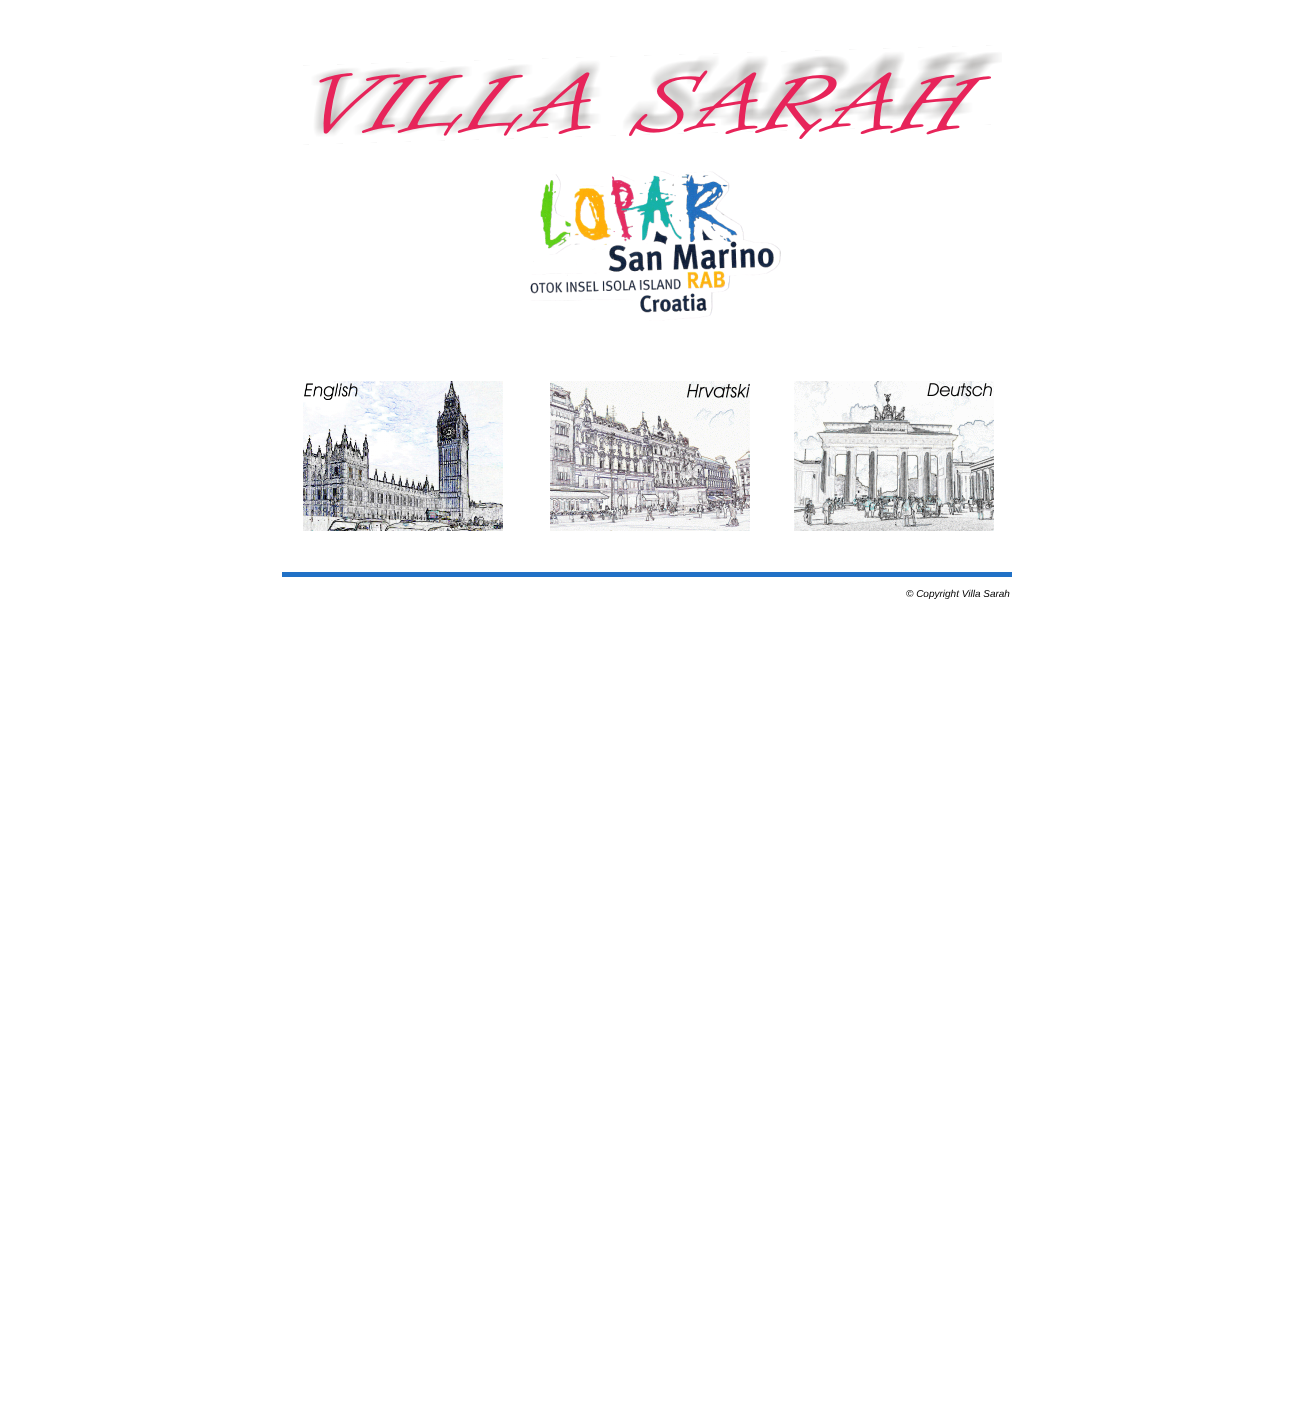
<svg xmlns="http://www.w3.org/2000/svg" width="1293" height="1418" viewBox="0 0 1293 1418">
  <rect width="100%" height="100%" fill="#ffffff"/>
  <image x="303" y="45" width="699" height="100" href="img1.png"/>
  <image x="530" y="171" width="251" height="150" href="img2.png"/>
  <image x="303" y="381" width="200" height="150" href="img3.png"/>
  <image x="550" y="381" width="200" height="150" href="img4.png"/>
  <image x="794" y="381" width="200" height="150" href="img5.png"/>
  <rect x="282" y="572" width="730" height="5" fill="#2171c6"/>
  <text x="906" y="597" font-family="Liberation Sans" font-size="10" font-style="italic" fill="#000000">© Copyright Villa Sarah</text>
</svg>
